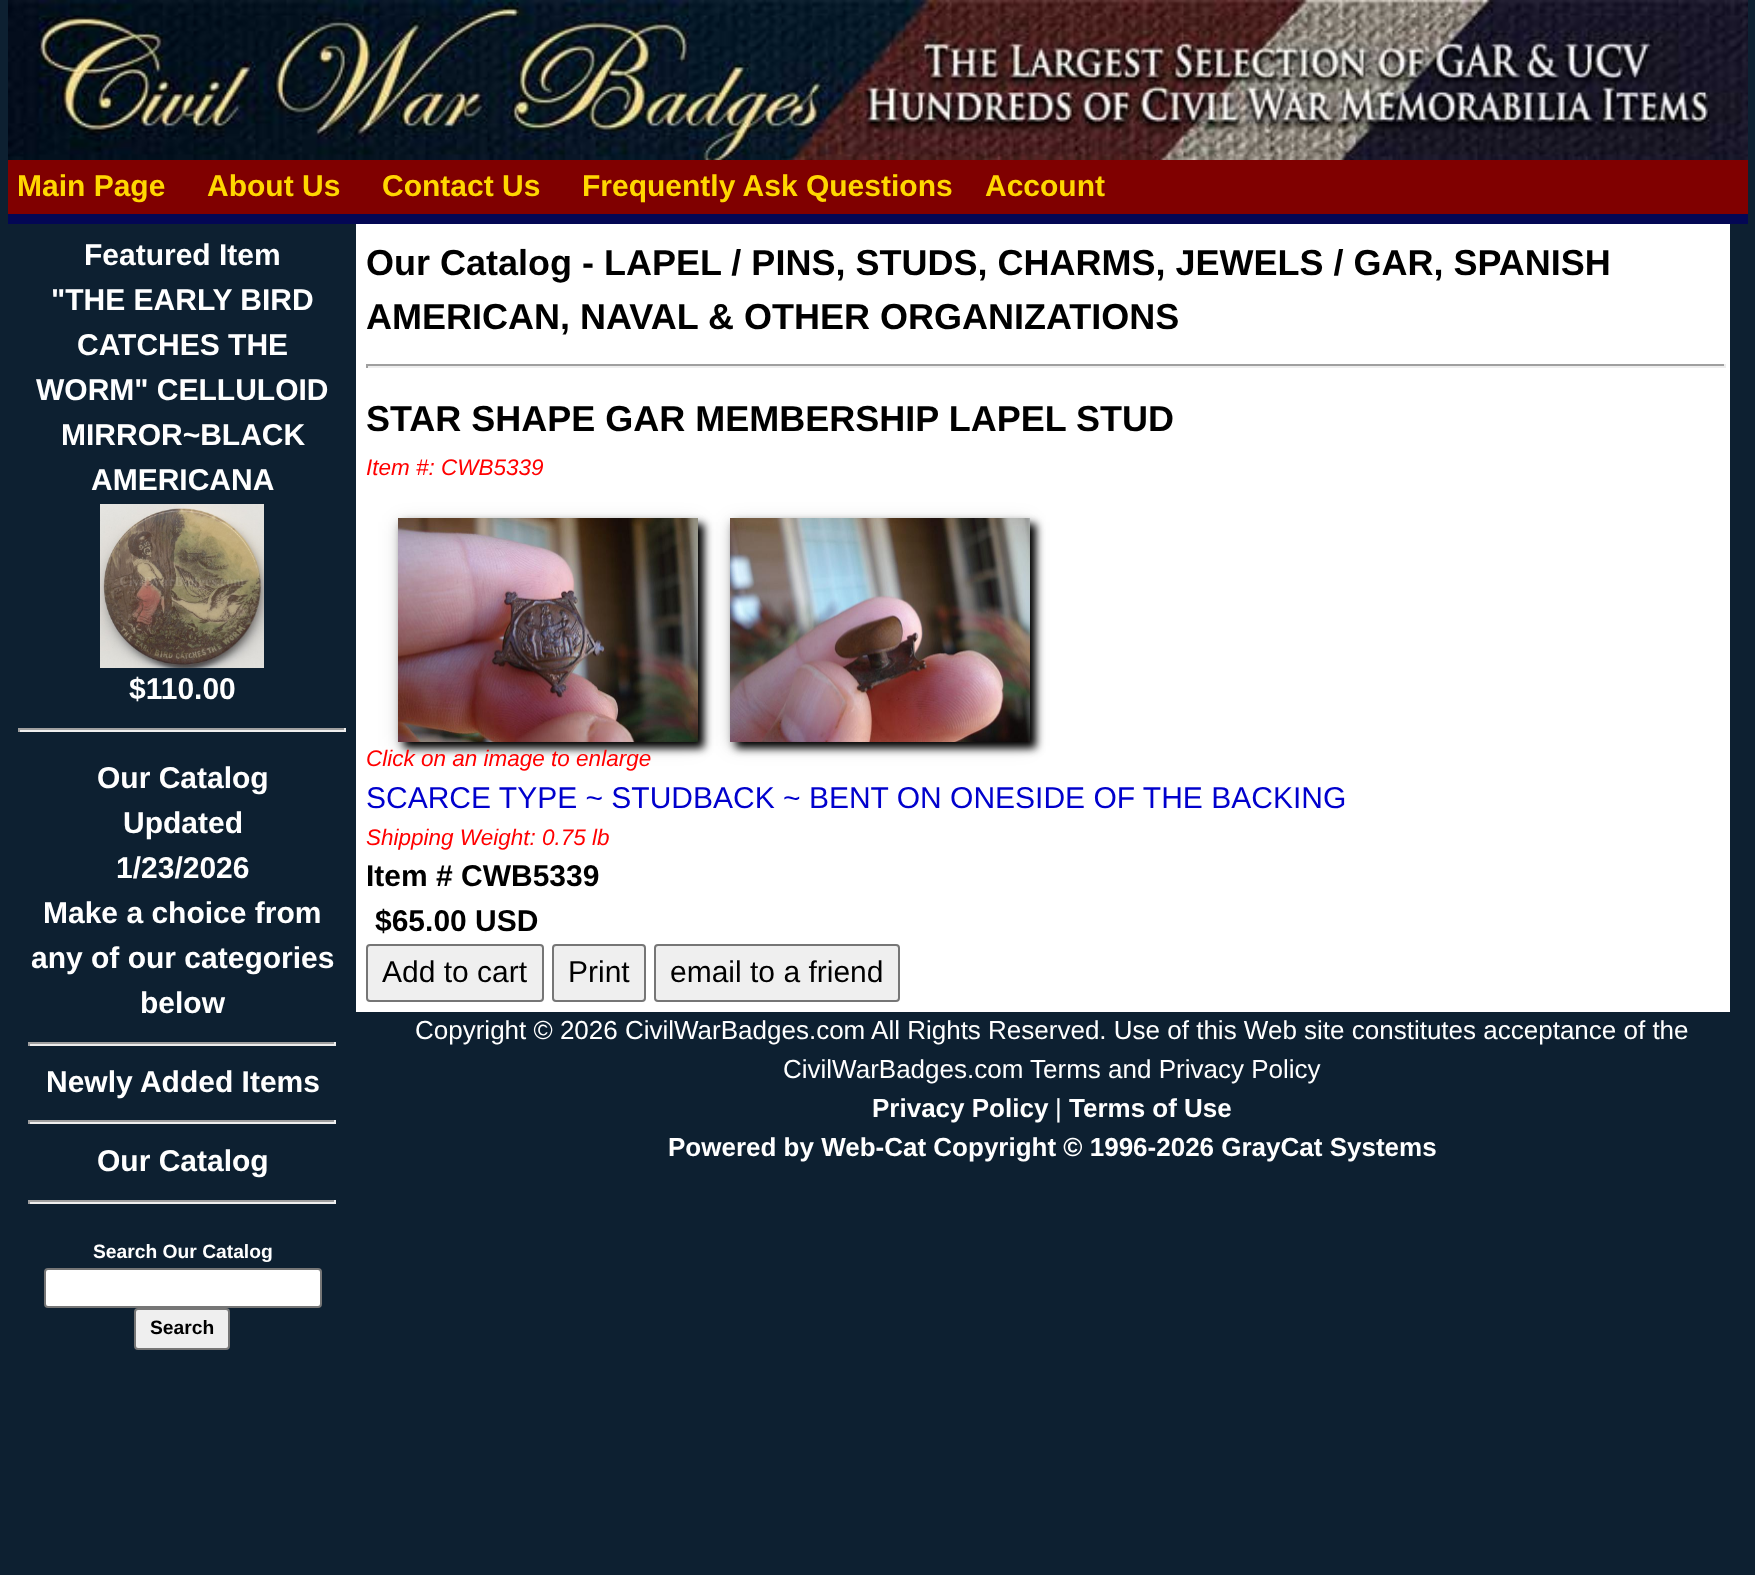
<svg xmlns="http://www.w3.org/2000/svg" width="1755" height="1575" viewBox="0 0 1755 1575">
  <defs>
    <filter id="blur1" x="-50%" y="-200%" width="200%" height="500%"><feGaussianBlur stdDeviation="10"/></filter>
    <filter id="blur2" x="-50%" y="-200%" width="200%" height="500%"><feGaussianBlur stdDeviation="5"/></filter>
    <filter id="blur3" x="-50%" y="-200%" width="200%" height="500%"><feGaussianBlur stdDeviation="4"/></filter>
  </defs>
  <rect width="100%" height="100%" fill="#0d2031"/>
  <rect x="8" y="160" width="1740" height="54" fill="#800000"/>
  <image x="8" y="0" width="1740" height="160" href="img1.png"/>
  <rect x="8" y="214" width="1740" height="10" fill="#030754"/>
  <text x="17" y="196" font-family="Liberation Sans" font-size="30" font-weight="bold" fill="#ffd700">Main Page</text>
  <text x="207" y="196" font-family="Liberation Sans" font-size="30" font-weight="bold" fill="#ffd700">About Us</text>
  <text x="382" y="196" font-family="Liberation Sans" font-size="30" font-weight="bold" fill="#ffd700">Contact Us</text>
  <text x="582" y="196" font-family="Liberation Sans" font-size="30" font-weight="bold" fill="#ffd700">Frequently Ask Questions</text>
  <text x="985" y="196" font-family="Liberation Sans" font-size="30" font-weight="bold" fill="#ffd700">Account</text>
  <text x="84" y="265" font-family="Liberation Sans" font-size="30" font-weight="bold" fill="#ffffff">Featured Item</text>
  <text x="51" y="310" font-family="Liberation Sans" font-size="30" font-weight="bold" fill="#ffffff">"THE EARLY BIRD</text>
  <text x="77" y="355" font-family="Liberation Sans" font-size="30" font-weight="bold" fill="#ffffff">CATCHES THE</text>
  <text x="36" y="400" font-family="Liberation Sans" font-size="30" font-weight="bold" fill="#ffffff">WORM" CELLULOID</text>
  <text x="61" y="445" font-family="Liberation Sans" font-size="30" font-weight="bold" fill="#ffffff">MIRROR~BLACK</text>
  <text x="91" y="490" font-family="Liberation Sans" font-size="30" font-weight="bold" fill="#ffffff">AMERICANA</text>
  <image x="100" y="504" width="164" height="164" href="img2.png"/>
  <text x="129" y="699" font-family="Liberation Sans" font-size="30" font-weight="bold" fill="#ffffff">$110.00</text>
  <rect x="18" y="728" width="328" height="2" fill="#9f9f9f"/>
  <rect x="344" y="728" width="2" height="4" fill="#eeeeee"/>
  <rect x="18" y="730" width="328" height="2" fill="#eeeeee"/>
  <rect x="18" y="728" width="2" height="4" fill="#9f9f9f"/>
  <text x="97" y="788" font-family="Liberation Sans" font-size="30" font-weight="bold" fill="#ffffff">Our Catalog</text>
  <text x="123" y="833" font-family="Liberation Sans" font-size="30" font-weight="bold" fill="#ffffff">Updated</text>
  <text x="116" y="878" font-family="Liberation Sans" font-size="30" font-weight="bold" fill="#ffffff">1/23/2026</text>
  <text x="43" y="923" font-family="Liberation Sans" font-size="30" font-weight="bold" fill="#ffffff">Make a choice from</text>
  <text x="31" y="968" font-family="Liberation Sans" font-size="30" font-weight="bold" fill="#ffffff">any of our categories</text>
  <text x="140" y="1013" font-family="Liberation Sans" font-size="30" font-weight="bold" fill="#ffffff">below</text>
  <rect x="28" y="1042" width="308" height="2" fill="#9f9f9f"/>
  <rect x="334" y="1042" width="2" height="4" fill="#eeeeee"/>
  <rect x="28" y="1044" width="308" height="2" fill="#eeeeee"/>
  <rect x="28" y="1042" width="2" height="4" fill="#9f9f9f"/>
  <text x="46" y="1092" font-family="Liberation Sans" font-size="30" font-weight="bold" fill="#ffffff">Newly Added Items</text>
  <rect x="28" y="1120" width="308" height="2" fill="#9f9f9f"/>
  <rect x="334" y="1120" width="2" height="4" fill="#eeeeee"/>
  <rect x="28" y="1122" width="308" height="2" fill="#eeeeee"/>
  <rect x="28" y="1120" width="2" height="4" fill="#9f9f9f"/>
  <text x="97" y="1171" font-family="Liberation Sans" font-size="30" font-weight="bold" fill="#ffffff">Our Catalog</text>
  <rect x="28" y="1200" width="308" height="2" fill="#9f9f9f"/>
  <rect x="334" y="1200" width="2" height="4" fill="#eeeeee"/>
  <rect x="28" y="1202" width="308" height="2" fill="#eeeeee"/>
  <rect x="28" y="1200" width="2" height="4" fill="#9f9f9f"/>
  <text x="93" y="1258" font-family="Liberation Sans" font-size="19.25" font-weight="bold" fill="#ffffff">Search Our Catalog</text>
  <rect x="45" y="1269" width="276" height="38" rx="3" fill="#ffffff" stroke="#767676" stroke-width="2"/>
  <rect x="135" y="1309" width="94" height="40" rx="3" fill="#efefef" stroke="#767676" stroke-width="2"/>
  <text x="150" y="1334" font-family="Liberation Sans" font-size="19.25" font-weight="bold" fill="#000000">Search</text>
  <rect x="356" y="224" width="1374" height="788" fill="#ffffff"/>
  <text x="366" y="275" font-family="Liberation Sans" font-size="36" font-weight="bold" fill="#000000">Our Catalog - LAPEL / PINS, STUDS, CHARMS, JEWELS / GAR, SPANISH</text>
  <text x="366" y="329" font-family="Liberation Sans" font-size="36" font-weight="bold" fill="#000000">AMERICAN, NAVAL &amp; OTHER ORGANIZATIONS</text>
  <rect x="366" y="364" width="1360" height="2" fill="#9f9f9f"/>
  <rect x="1724" y="364" width="2" height="4" fill="#eeeeee"/>
  <rect x="366" y="366" width="1360" height="2" fill="#eeeeee"/>
  <rect x="366" y="364" width="2" height="4" fill="#9f9f9f"/>
  <text x="366" y="431" font-family="Liberation Sans" font-size="36" font-weight="bold" fill="#000000">STAR SHAPE GAR MEMBERSHIP LAPEL STUD</text>
  <text x="366" y="475" font-family="Liberation Sans" font-size="22.5" font-style="italic" fill="#ff0000">Item #: CWB5339</text>
  <rect x="398" y="522" width="300" height="224" fill="#000000" fill-opacity="0.12" filter="url(#blur1)"/>
  <rect x="398" y="522" width="300" height="224" fill="#000000" fill-opacity="0.16" filter="url(#blur2)"/>
  <rect x="404" y="524" width="300" height="224" fill="#000000" filter="url(#blur3)"/>
  <image x="398" y="518" width="300" height="224" href="img3.png"/>
  <rect x="730" y="522" width="300" height="224" fill="#000000" fill-opacity="0.12" filter="url(#blur1)"/>
  <rect x="730" y="522" width="300" height="224" fill="#000000" fill-opacity="0.16" filter="url(#blur2)"/>
  <rect x="736" y="524" width="300" height="224" fill="#000000" filter="url(#blur3)"/>
  <image x="730" y="518" width="300" height="224" href="img4.png"/>
  <text x="366" y="766" font-family="Liberation Sans" font-size="22.5" font-style="italic" fill="#ff0000">Click on an image to enlarge</text>
  <text x="366" y="808" font-family="Liberation Sans" font-size="30" fill="#0000cd">SCARCE TYPE ~ STUDBACK ~ BENT ON ONESIDE OF THE BACKING</text>
  <text x="366" y="845" font-family="Liberation Sans" font-size="22.5" font-style="italic" fill="#ff0000">Shipping Weight: 0.75 lb</text>
  <text x="366" y="886" font-family="Liberation Sans" font-size="30" font-weight="bold" fill="#000000">Item # CWB5339</text>
  <text x="375" y="931" font-family="Liberation Sans" font-size="30" font-weight="bold" fill="#000000">$65.00 USD</text>
  <rect x="367" y="945" width="176" height="56" rx="3" fill="#efefef" stroke="#767676" stroke-width="2"/>
  <text x="382" y="982" font-family="Liberation Sans" font-size="30" fill="#000000">Add to cart</text>
  <rect x="553" y="945" width="92" height="56" rx="3" fill="#efefef" stroke="#767676" stroke-width="2"/>
  <text x="568" y="982" font-family="Liberation Sans" font-size="30" fill="#000000">Print</text>
  <rect x="655" y="945" width="244" height="56" rx="3" fill="#efefef" stroke="#767676" stroke-width="2"/>
  <text x="670" y="982" font-family="Liberation Sans" font-size="30" fill="#000000">email to a friend</text>
  <text x="415" y="1039" font-family="Liberation Sans" font-size="26" fill="#ffffff">Copyright © 2026 CivilWarBadges.com All Rights Reserved. Use of this Web site constitutes acceptance of the</text>
  <text x="783" y="1078" font-family="Liberation Sans" font-size="26" fill="#ffffff">CivilWarBadges.com Terms and Privacy Policy</text>
  <text x="872" y="1117" font-family="Liberation Sans" font-size="26" font-weight="bold" fill="#ffffff">Privacy Policy</text>
  <text x="1055" y="1117" font-family="Liberation Sans" font-size="26" fill="#ffffff">|</text>
  <text x="1069" y="1117" font-family="Liberation Sans" font-size="26" font-weight="bold" fill="#ffffff">Terms of Use</text>
  <text x="668" y="1156" font-family="Liberation Sans" font-size="26" font-weight="bold" fill="#ffffff">Powered by Web-Cat Copyright © 1996-2026 GrayCat Systems</text>
</svg>
